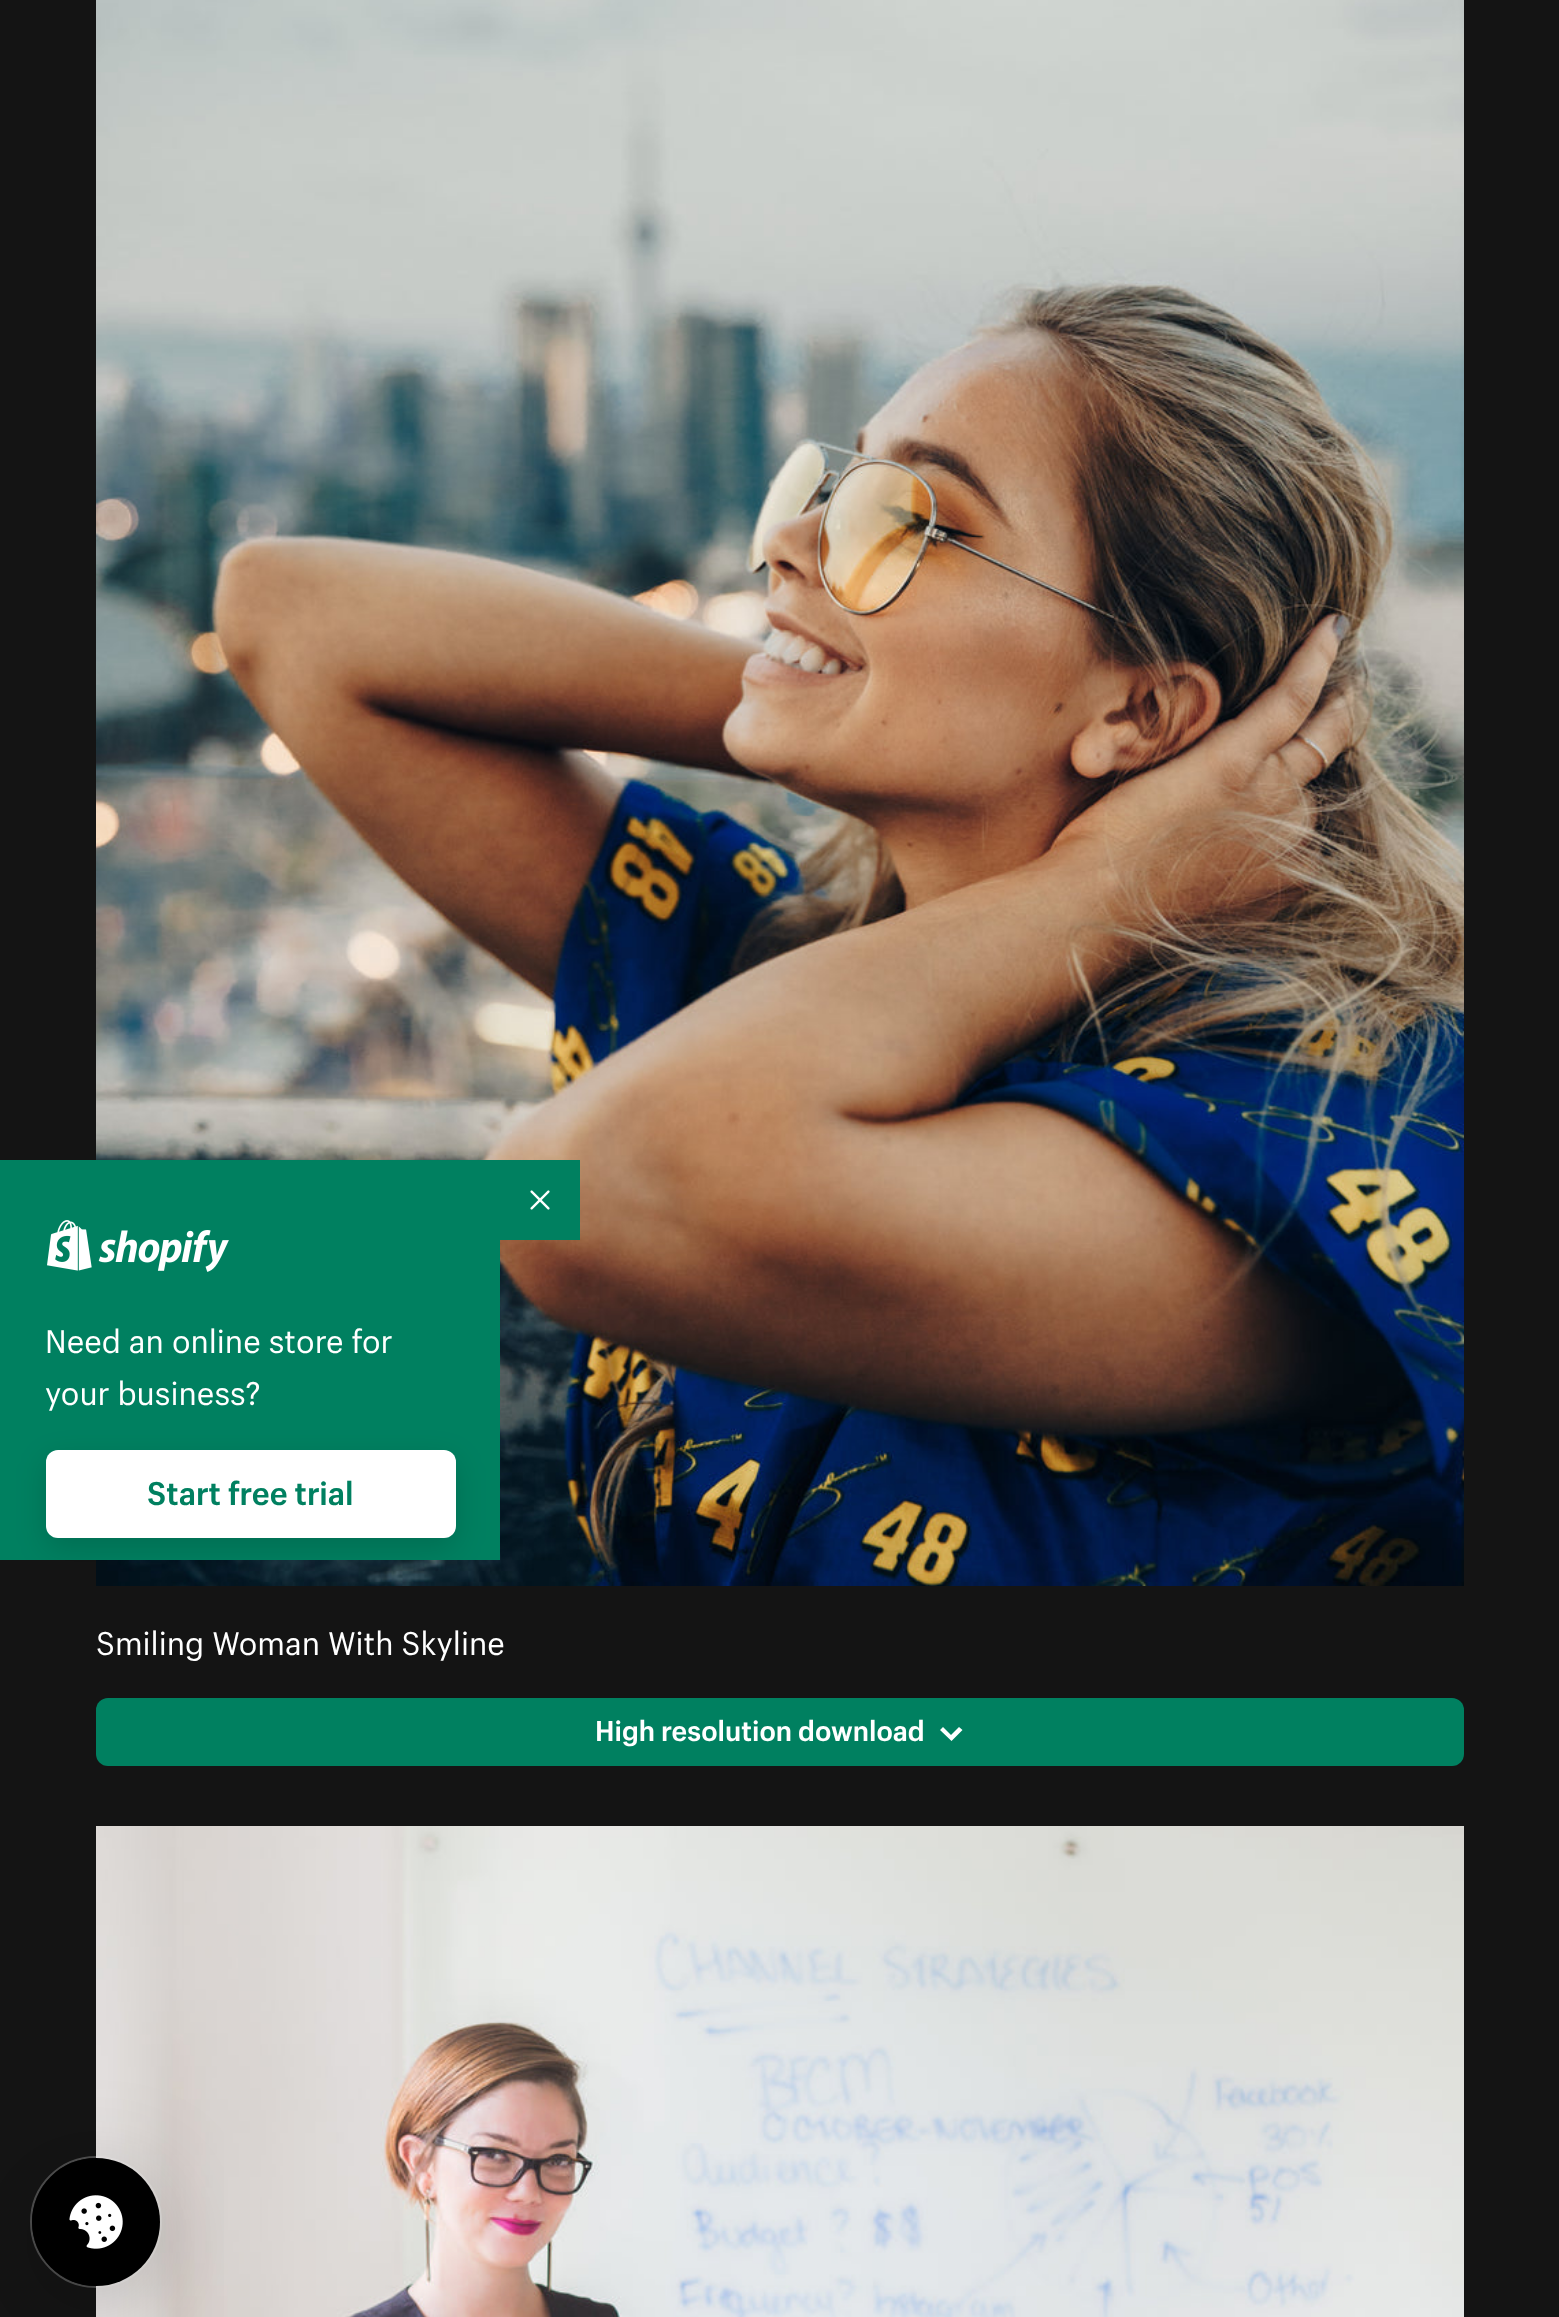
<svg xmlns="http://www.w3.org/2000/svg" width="1559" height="2317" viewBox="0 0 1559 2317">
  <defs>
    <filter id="blur1" x="-50%" y="-200%" width="200%" height="500%"><feGaussianBlur stdDeviation="15"/></filter>
    <filter id="blur2" x="-50%" y="-200%" width="200%" height="500%"><feGaussianBlur stdDeviation="50"/></filter>
  </defs>
  <rect width="100%" height="100%" fill="#141414"/>
  <image x="96" y="0" width="1368" height="1586" href="img3.png"/>
  <rect x="500" y="1160" width="80" height="80" fill="#008060"/>
  <image x="530" y="1190" width="20" height="20" href="img1.png"/>
  <rect x="0" y="1160" width="500" height="400" fill="#008060"/>
  <image x="47" y="1220" width="182" height="52" href="img2.png"/>
  <text x="45" y="1353" font-family="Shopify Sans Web" font-size="32" fill="#ffffff">Need an online store for</text>
  <text x="45" y="1405" font-family="Shopify Sans Web" font-size="32" fill="#ffffff">your business?</text>
  <rect x="46" y="1460" width="410" height="88" rx="12" fill="#000000" fill-opacity="0.15" filter="url(#blur1)"/>
  <rect x="46" y="1450" width="410" height="88" rx="12" fill="#ffffff"/>
  <text x="147" y="1505" font-family="Shopify Sans Web" font-size="32" font-weight="bold" fill="#008060">Start free trial</text>
  <text x="96" y="1655" font-family="Shopify Sans Web" font-size="32" fill="#ffffff">Smiling Woman With Skyline</text>
  <rect x="96" y="1698" width="1368" height="68" rx="12" fill="#008060"/>
  <text x="595" y="1741" font-family="Shopify Sans Web" font-size="27.9" font-weight="bold" fill="#ffffff">High resolution download</text>
  <path d="M951.5 1741L940 1730L943 1727L951 1735L959 1727L962.5 1730" fill="#ffffff"/>
  <image x="96" y="1826" width="1368" height="491" href="img4.png"/>
  <circle cx="96" cy="2222" r="65" fill="none" stroke="#ffffff" stroke-opacity="0.25" stroke-width="2"/>
  <rect x="32" y="2178" width="128" height="128" rx="64" fill="#000000" fill-opacity="0.25" filter="url(#blur2)"/>
  <circle cx="96" cy="2222" r="64" fill="#000000"/>
  <image x="69" y="2195" width="54" height="54" href="img5.png"/>
</svg>
